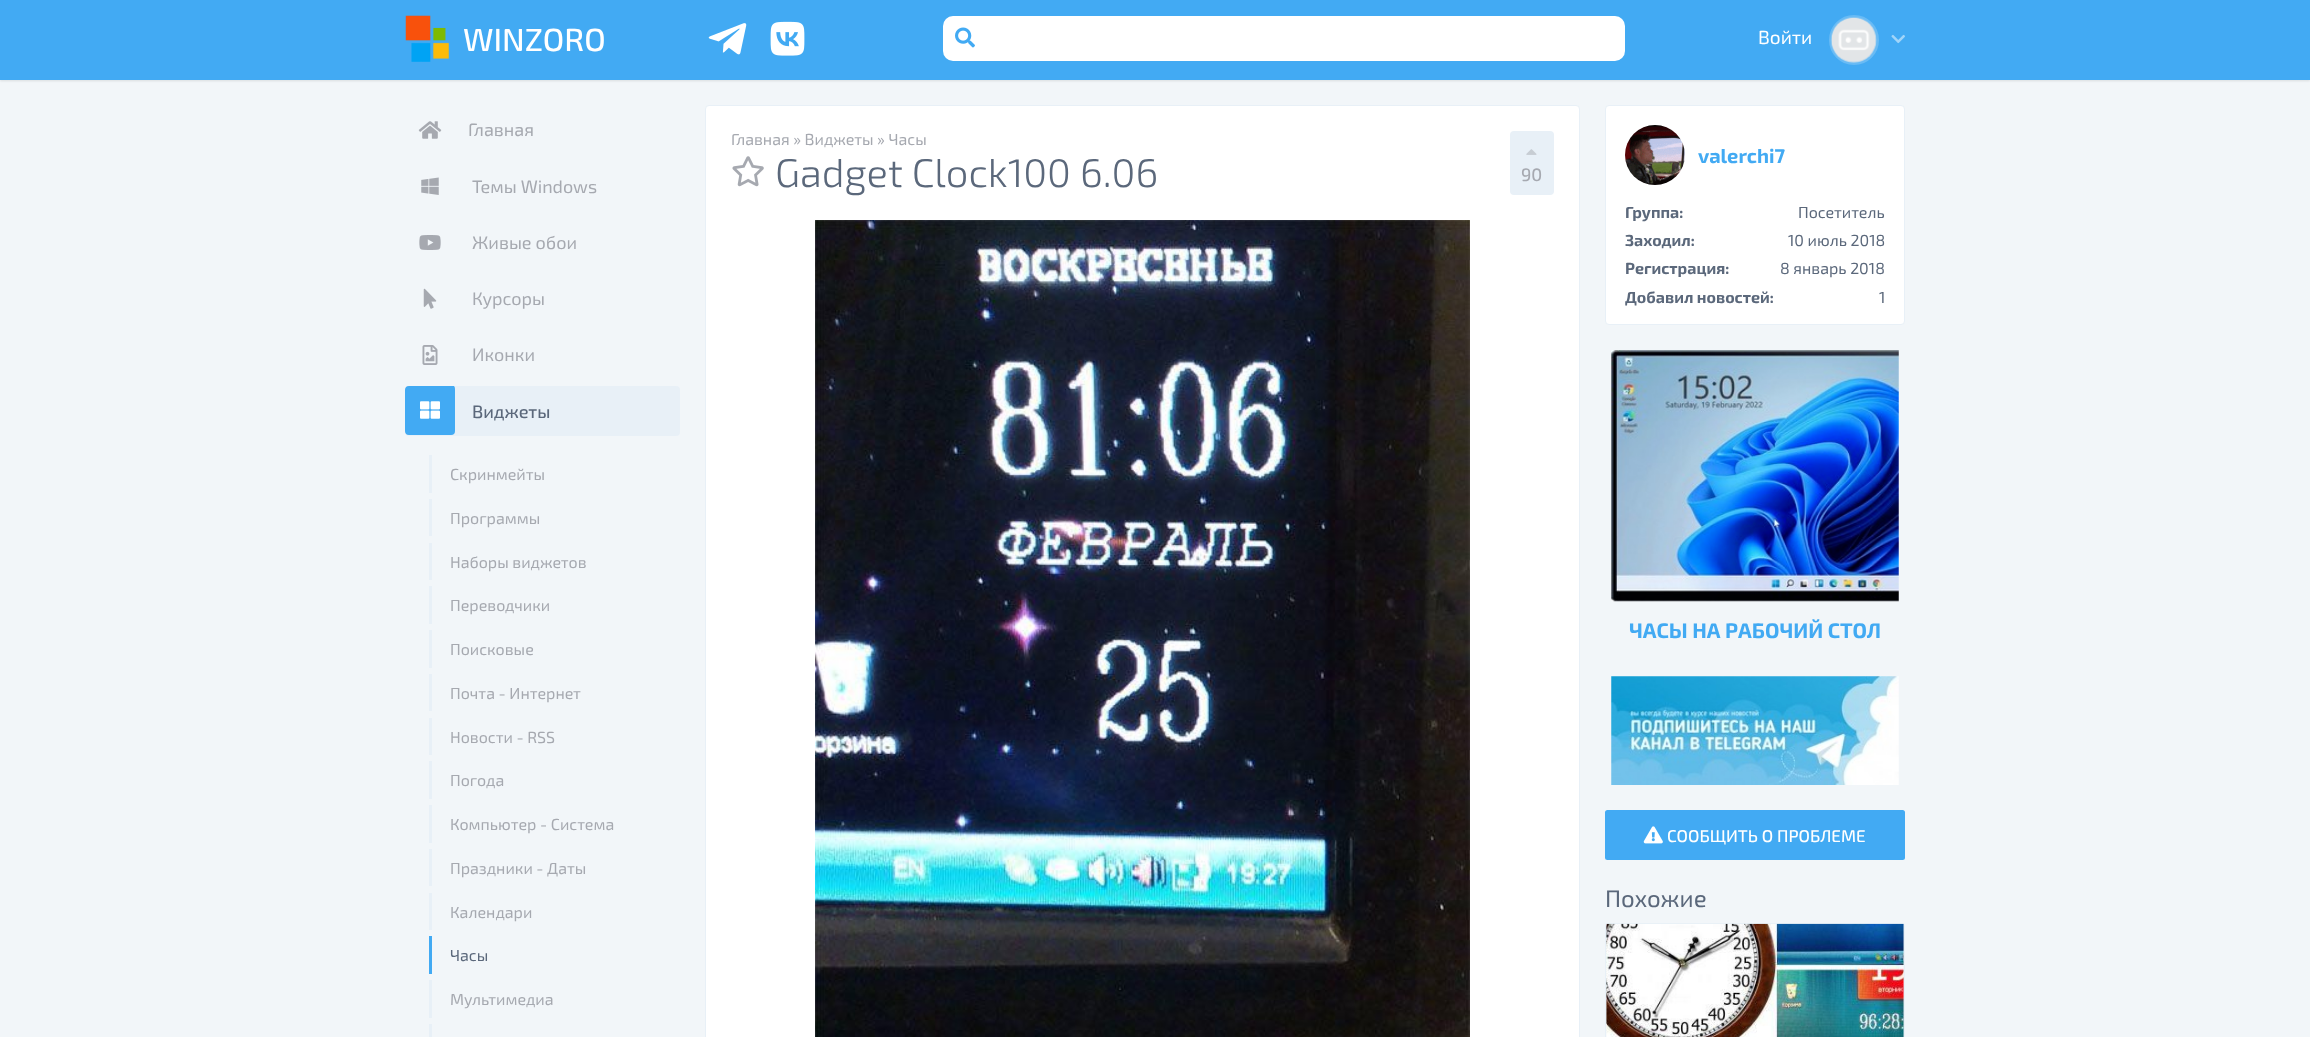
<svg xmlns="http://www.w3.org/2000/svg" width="2310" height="1037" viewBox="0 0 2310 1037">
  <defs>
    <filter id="blur1" x="-50%" y="-200%" width="200%" height="500%"><feGaussianBlur stdDeviation="1"/></filter>
    <clipPath id="clip1"><rect x="405" y="386" width="275" height="50" rx="4"/></clipPath>
  </defs>
  <rect width="100%" height="100%" fill="#f2f6f9"/>
  <rect x="0" y="1" width="2310" height="80" fill="#000000" fill-opacity="0.1" filter="url(#blur1)"/>
  <rect x="0" y="0" width="2310" height="80" fill="#42aaf3"/>
  <image x="405" y="15" width="44" height="47" href="img1.png"/>
  <text x="463" y="51" font-family="'Exo 2'" font-size="32" font-weight="500" fill="#ffffff">WINZORO</text>
  <image x="708" y="23" width="39" height="32" href="img2.png"/>
  <image x="770" y="21" width="35" height="35" href="img3.png"/>
  <rect x="943" y="16" width="682" height="45" rx="10" fill="#ffffff"/>
  <image x="955" y="27" width="20" height="21" href="img4.png"/>
  <text x="1758" y="44" font-family="'Exo 2'" font-size="19" fill="#ffffff">Войти</text>
  <circle cx="1854" cy="40" r="23.5" fill="none" stroke="#68bbf5" stroke-width="3"/>
  <image x="1830" y="17" width="47" height="46" href="img5.png"/>
  <image x="1891" y="34" width="14" height="10" href="img6.png"/>
  <image x="418" y="121" width="24" height="18" href="img7.png"/>
  <text x="468" y="136" font-family="'Exo 2'" font-size="18" fill="#a6a9b0">Главная</text>
  <image x="421" y="177" width="18" height="18" href="img8.png"/>
  <text x="472" y="193" font-family="'Exo 2'" font-size="18" fill="#a6a9b0">Темы Windows</text>
  <image x="419" y="235" width="22" height="15" href="img9.png"/>
  <text x="472" y="249" font-family="'Exo 2'" font-size="18" fill="#a6a9b0">Живые обои</text>
  <image x="423" y="288" width="14" height="21" href="img10.png"/>
  <text x="472" y="305" font-family="'Exo 2'" font-size="18" fill="#a6a9b0">Курсоры</text>
  <image x="422" y="345" width="16" height="20" href="img11.png"/>
  <text x="472" y="361" font-family="'Exo 2'" font-size="18" fill="#a6a9b0">Иконки</text>
  <rect x="405" y="386" width="275" height="50" rx="4" fill="#e8f0f7"/>
  <g clip-path="url(#clip1)">
    <rect x="405" y="385" width="50" height="50" rx="4" fill="#42aaf3"/>
  </g>
  <image x="420" y="401" width="20" height="18" href="img12.png"/>
  <text x="472" y="418" font-family="'Exo 2'" font-size="18" font-weight="500" fill="#5b687b">Виджеты</text>
  <rect x="429" y="455" width="3" height="38" fill="#e8f0f7"/>
  <text x="450" y="480" font-family="'Exo 2'" font-size="16" fill="#a6a9b0">Скринмейты</text>
  <rect x="429" y="499" width="3" height="37" fill="#e8f0f7"/>
  <text x="450" y="524" font-family="'Exo 2'" font-size="16" fill="#a6a9b0">Программы</text>
  <rect x="429" y="543" width="3" height="37" fill="#e8f0f7"/>
  <text x="450" y="568" font-family="'Exo 2'" font-size="16" fill="#a6a9b0">Наборы виджетов</text>
  <rect x="429" y="586" width="3" height="38" fill="#e8f0f7"/>
  <text x="450" y="611" font-family="'Exo 2'" font-size="16" fill="#a6a9b0">Переводчики</text>
  <rect x="429" y="630" width="3" height="38" fill="#e8f0f7"/>
  <text x="450" y="655" font-family="'Exo 2'" font-size="16" fill="#a6a9b0">Поисковые</text>
  <rect x="429" y="674" width="3" height="37" fill="#e8f0f7"/>
  <text x="450" y="699" font-family="'Exo 2'" font-size="16" fill="#a6a9b0">Почта - Интернет</text>
  <rect x="429" y="718" width="3" height="37" fill="#e8f0f7"/>
  <text x="450" y="743" font-family="'Exo 2'" font-size="16" fill="#a6a9b0">Новости - RSS</text>
  <rect x="429" y="761" width="3" height="38" fill="#e8f0f7"/>
  <text x="450" y="786" font-family="'Exo 2'" font-size="16" fill="#a6a9b0">Погода</text>
  <rect x="429" y="805" width="3" height="38" fill="#e8f0f7"/>
  <text x="450" y="830" font-family="'Exo 2'" font-size="16" fill="#a6a9b0">Компьютер - Система</text>
  <rect x="429" y="849" width="3" height="37" fill="#e8f0f7"/>
  <text x="450" y="874" font-family="'Exo 2'" font-size="16" fill="#a6a9b0">Праздники - Даты</text>
  <rect x="429" y="893" width="3" height="37" fill="#e8f0f7"/>
  <text x="450" y="918" font-family="'Exo 2'" font-size="16" fill="#a6a9b0">Календари</text>
  <rect x="429" y="936" width="3" height="38" fill="#42aaf3"/>
  <text x="450" y="961" font-family="'Exo 2'" font-size="16" fill="#5b687b">Часы</text>
  <rect x="429" y="980" width="3" height="38" fill="#e8f0f7"/>
  <text x="450" y="1005" font-family="'Exo 2'" font-size="16" fill="#a6a9b0">Мультимедиа</text>
  <rect x="429" y="1024" width="3" height="13" fill="#e8f0f7"/>
  <rect x="705.5" y="105.5" width="874" height="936" rx="3.5" fill="#ffffff" stroke="#e8f0f7"/>
  <text x="731" y="145" font-family="'Exo 2'" font-size="16" fill="#a6a9b0">Главная » Виджеты » Часы</text>
  <image x="732" y="156" width="32" height="31" href="img13.png"/>
  <text x="775" y="187" font-family="'Exo 2'" font-size="40" font-weight="300" fill="#5b687b">Gadget Clock100 6.06</text>
  <rect x="1510" y="131" width="44" height="64" rx="4" fill="#e8f0f7"/>
  <image x="1526" y="149" width="11" height="6" href="img14.png"/>
  <text x="1521" y="181" font-family="'Exo 2'" font-size="18" font-weight="500" fill="#a6a9b0">90</text>
  <image x="815" y="220" width="655" height="817" href="img15.png"/>
  <rect x="1605.5" y="105.5" width="299" height="219" rx="3.5" fill="#ffffff" stroke="#e8f0f7"/>
  <image x="1625" y="125" width="60" height="60" href="img16.png"/>
  <text x="1698" y="163" font-family="'Exo 2'" font-size="20" font-weight="bold" fill="#42aaf3">valerchi7</text>
  <text x="1625" y="218" font-family="'Exo 2'" font-size="16" font-weight="bold" fill="#5b687b">Группа:</text>
  <text x="1798" y="218" font-family="'Exo 2'" font-size="16" fill="#5b687b">Посетитель</text>
  <text x="1625" y="246" font-family="'Exo 2'" font-size="16" font-weight="bold" fill="#5b687b">Заходил:</text>
  <text x="1788" y="246" font-family="'Exo 2'" font-size="16" fill="#5b687b">10 июль 2018</text>
  <text x="1625" y="274" font-family="'Exo 2'" font-size="16" font-weight="bold" fill="#5b687b">Регистрация:</text>
  <text x="1780" y="274" font-family="'Exo 2'" font-size="16" fill="#5b687b">8 январь 2018</text>
  <text x="1625" y="303" font-family="'Exo 2'" font-size="16" font-weight="bold" fill="#5b687b">Добавил новостей:</text>
  <text x="1879" y="303" font-family="'Exo 2'" font-size="16" fill="#5b687b">1</text>
  <image x="1611" y="350" width="288" height="252" href="img17.png"/>
  <text x="1629" y="638" font-family="'Exo 2'" font-size="21" font-weight="bold" fill="#42aaf3">ЧАСЫ НА РАБОЧИЙ СТОЛ</text>
  <image x="1611" y="676" width="288" height="109" href="img18.png"/>
  <rect x="1605" y="810" width="300" height="50" rx="2.5" fill="#42aaf3"/>
  <image x="1643" y="826" width="20" height="18" href="img19.png"/>
  <text x="1667" y="842" font-family="'Exo 2'" font-size="17" font-weight="500" fill="#ffffff">СООБЩИТЬ О ПРОБЛЕМЕ</text>
  <text x="1605" y="907" font-family="'Exo 2'" font-size="24" fill="#5b687b">Похожие</text>
  <path d="M1608 923C1606 923 1605 924 1605 926V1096C1605 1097 1606 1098 1608 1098H1902C1904 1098 1905 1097 1905 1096V926C1905 924 1904 923 1902 923ZM1606 924V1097H1904V924Z" fill="#e8f0f7" fill-rule="evenodd"/>
  <image x="1606" y="923" width="298" height="114" href="img20.png"/>
</svg>
